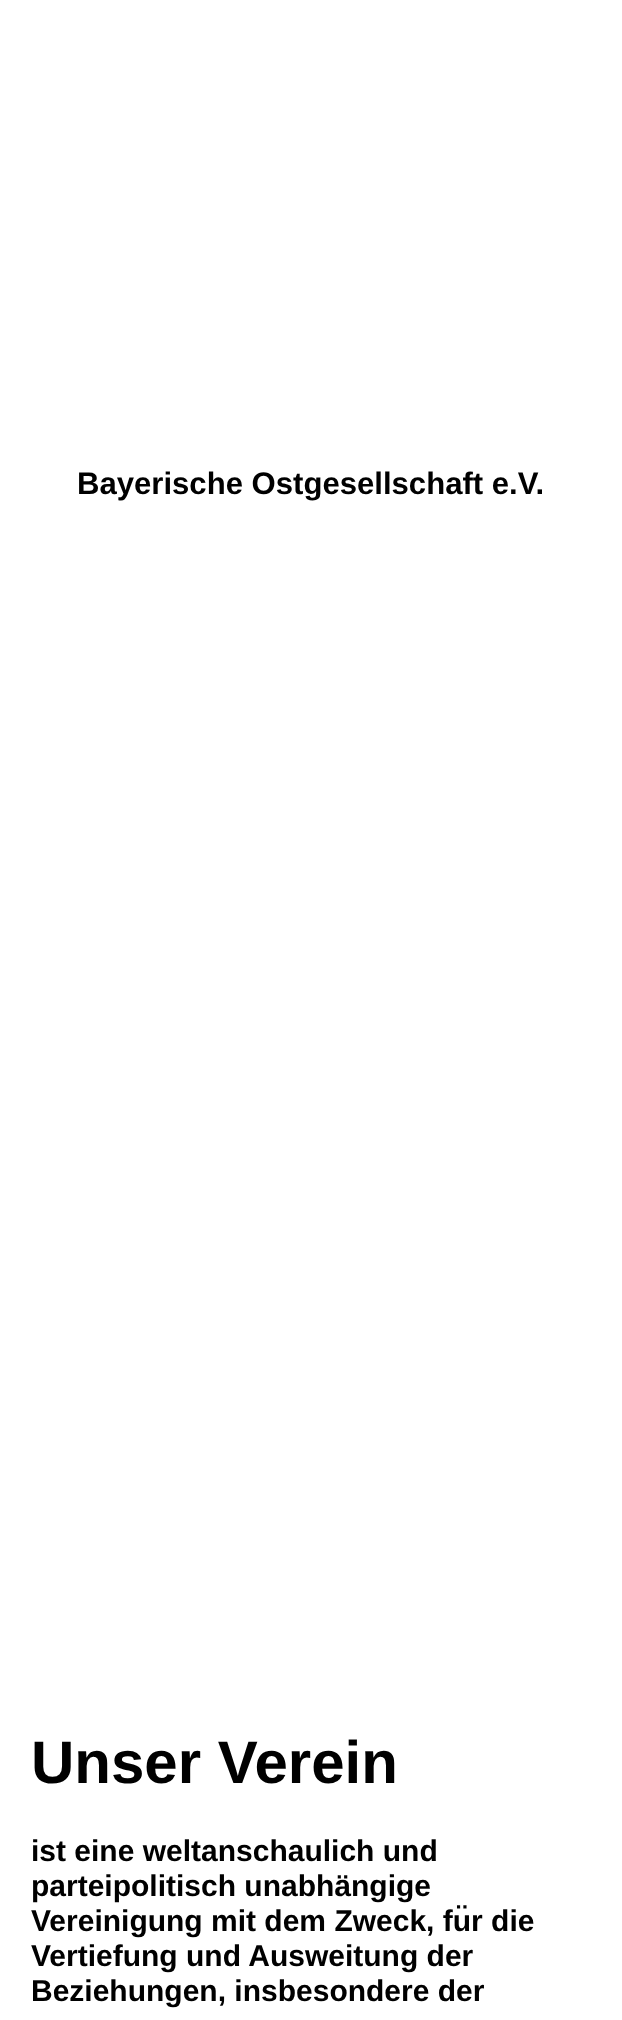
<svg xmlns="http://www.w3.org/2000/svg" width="622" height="2020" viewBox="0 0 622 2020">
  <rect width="100%" height="100%" fill="#ffffff"/>
  <text x="77" y="494" font-family="Liberation Sans" font-size="31.1" font-weight="bold" fill="#000000">Bayerische Ostgesellschaft e.V.</text>
  <text x="31" y="1783" font-family="Liberation Sans" font-size="60" font-weight="bold" fill="#000000">Unser Verein</text>
  <text x="31" y="1861" font-family="Liberation Sans" font-size="30" font-weight="bold" fill="#000000">ist eine weltanschaulich und</text>
  <text x="31" y="1896" font-family="Liberation Sans" font-size="30" font-weight="bold" fill="#000000">parteipolitisch unabhängige</text>
  <text x="31" y="1931" font-family="Liberation Sans" font-size="30" font-weight="bold" fill="#000000">Vereinigung mit dem Zweck, für die</text>
  <text x="31" y="1966" font-family="Liberation Sans" font-size="30" font-weight="bold" fill="#000000">Vertiefung und Ausweitung der</text>
  <text x="31" y="2001" font-family="Liberation Sans" font-size="30" font-weight="bold" fill="#000000">Beziehungen, insbesondere der</text>
</svg>
